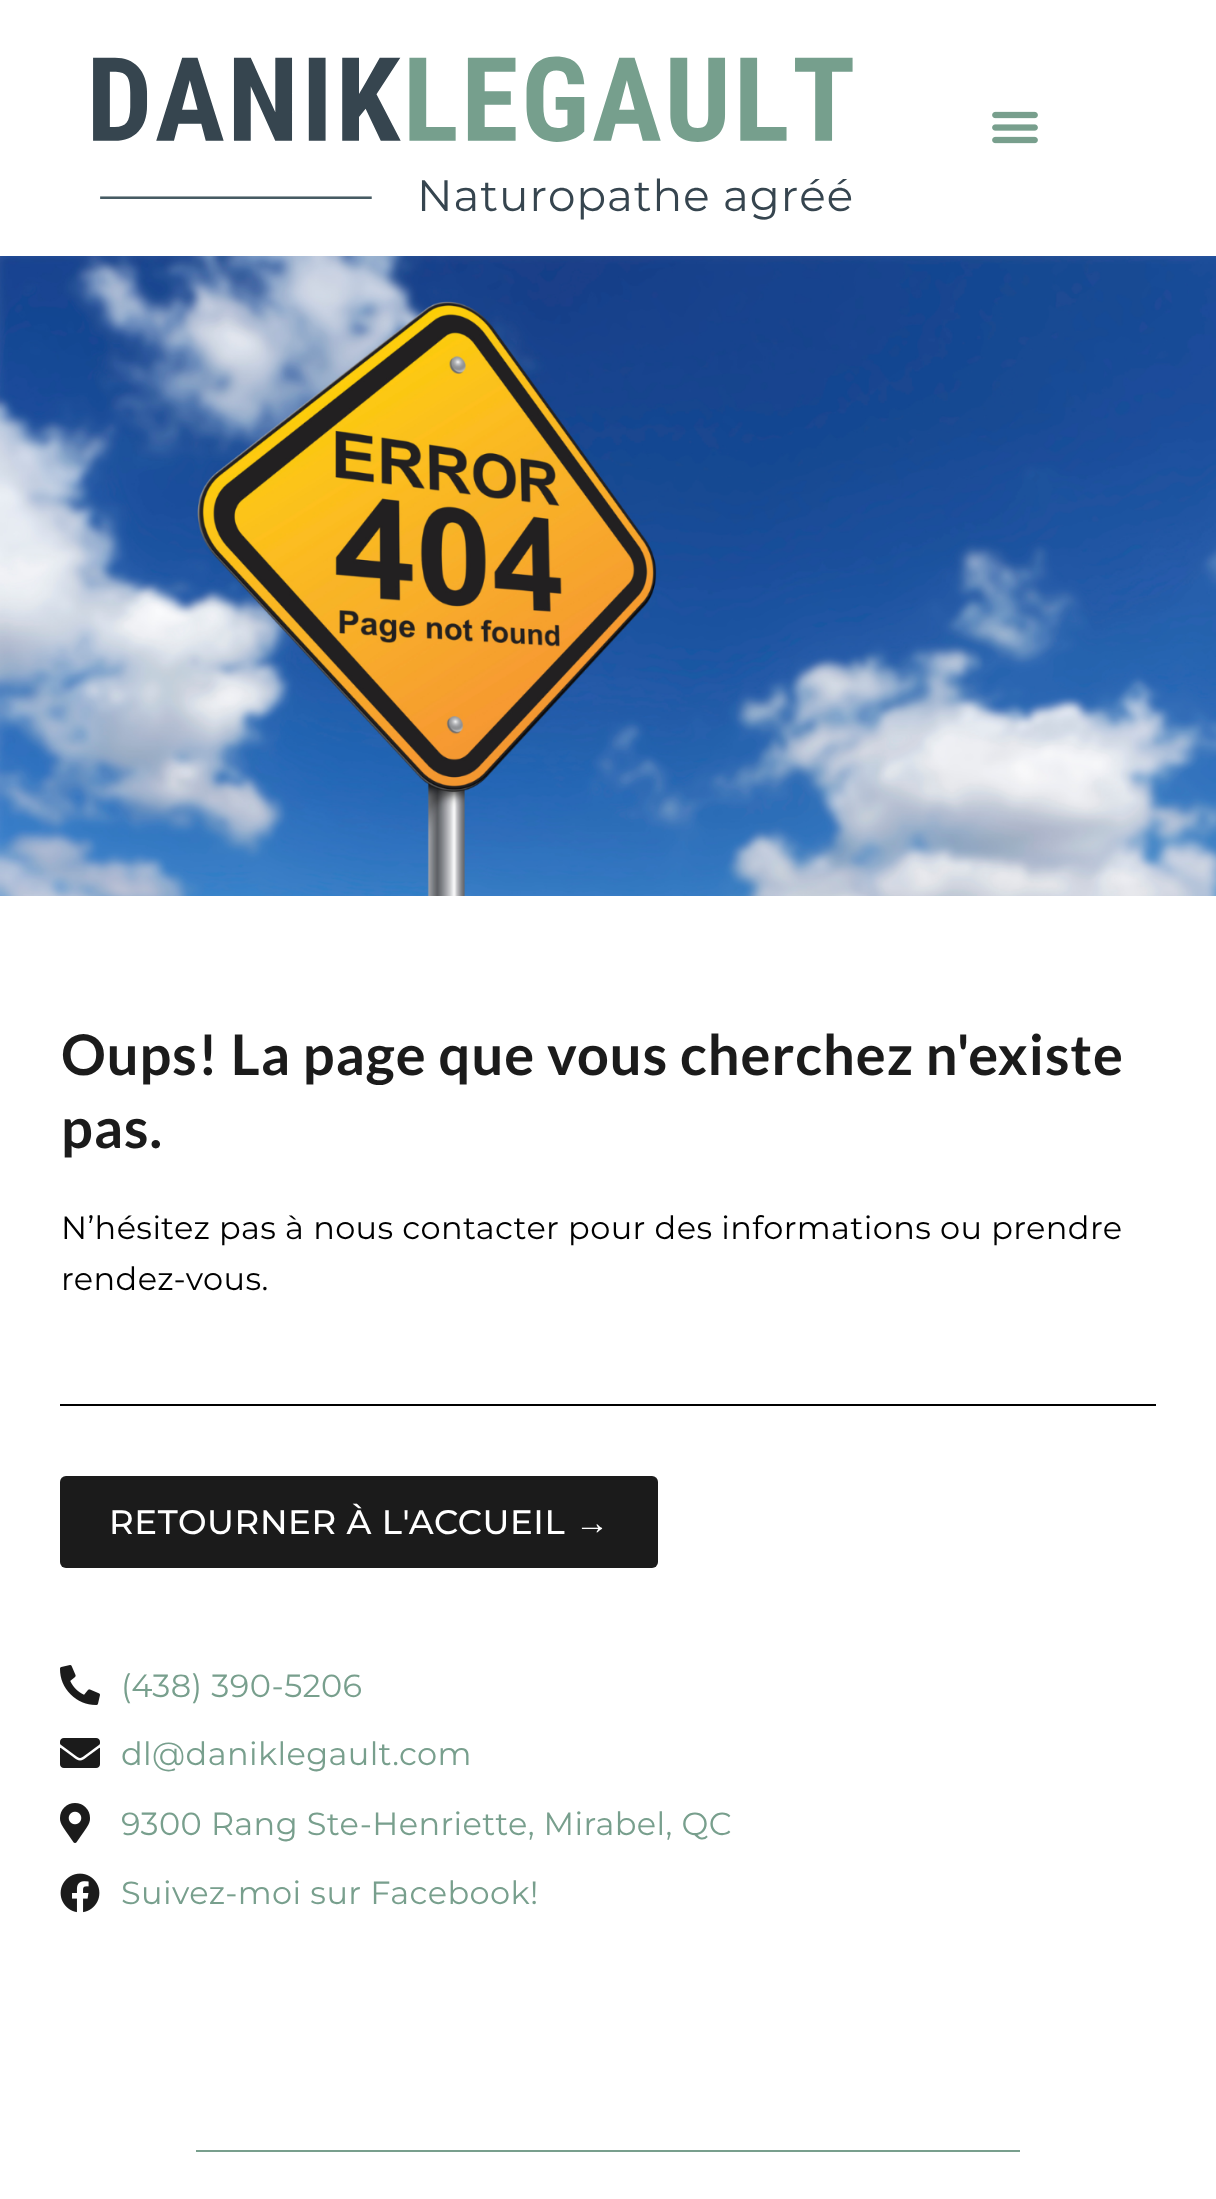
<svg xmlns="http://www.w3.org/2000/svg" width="1216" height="2199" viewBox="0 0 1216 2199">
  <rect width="100%" height="100%" fill="#ffffff"/>
  <image x="93" y="56" width="760" height="164" href="img1.png"/>
  <image x="992" y="111" width="46" height="33" href="img2.png"/>
  <image x="0" y="256" width="1216" height="640" href="img3.png"/>
  <text x="61" y="1075" font-family="Lato" font-size="56" font-weight="bold" letter-spacing="1" fill="#1b1b1b">Oups! La page que vous cherchez n'existe</text>
  <text x="61" y="1148" font-family="Lato" font-size="56" font-weight="bold" letter-spacing="1" fill="#1b1b1b">pas.</text>
  <text x="61" y="1239" font-family="Montserrat" font-size="32" letter-spacing="0.4" fill="#000000">N’hésitez pas à nous contacter pour des informations ou prendre</text>
  <text x="61" y="1290" font-family="Montserrat" font-size="32" letter-spacing="0.4" fill="#000000">rendez-vous.</text>
  <rect x="60" y="1404" width="1096" height="2" fill="#000000"/>
  <rect x="60" y="1476" width="598" height="92" rx="6" fill="#1b1b1b"/>
  <text x="109" y="1534" font-family="Montserrat" font-size="34" font-weight="500" letter-spacing="0.6" fill="#ffffff">RETOURNER À L'ACCUEIL</text>
  <text x="575" y="1534" font-family="Liberation Sans" font-size="34" letter-spacing="0.6" fill="#ffffff">→</text>
  <image x="60" y="1665" width="40" height="40" href="img4.png"/>
  <text x="121" y="1697" font-family="Montserrat" font-size="32" letter-spacing="0.4" fill="#789f8d">(438) 390-5206</text>
  <image x="60" y="1738" width="40" height="30" href="img5.png"/>
  <text x="121" y="1765" font-family="Montserrat" font-size="32" letter-spacing="0.4" fill="#789f8d">dl@daniklegault.com</text>
  <image x="60" y="1803" width="30" height="40" href="img6.png"/>
  <text x="121" y="1835" font-family="Montserrat" font-size="32" letter-spacing="0.4" fill="#789f8d">9300 Rang Ste-Henriette, Mirabel, QC</text>
  <image x="60" y="1873" width="40" height="40" href="img7.png"/>
  <text x="121" y="1904" font-family="Montserrat" font-size="32" letter-spacing="0.4" fill="#789f8d">Suivez-moi sur Facebook!</text>
  <rect x="196" y="2150" width="824" height="2" fill="#789f8d"/>
</svg>
